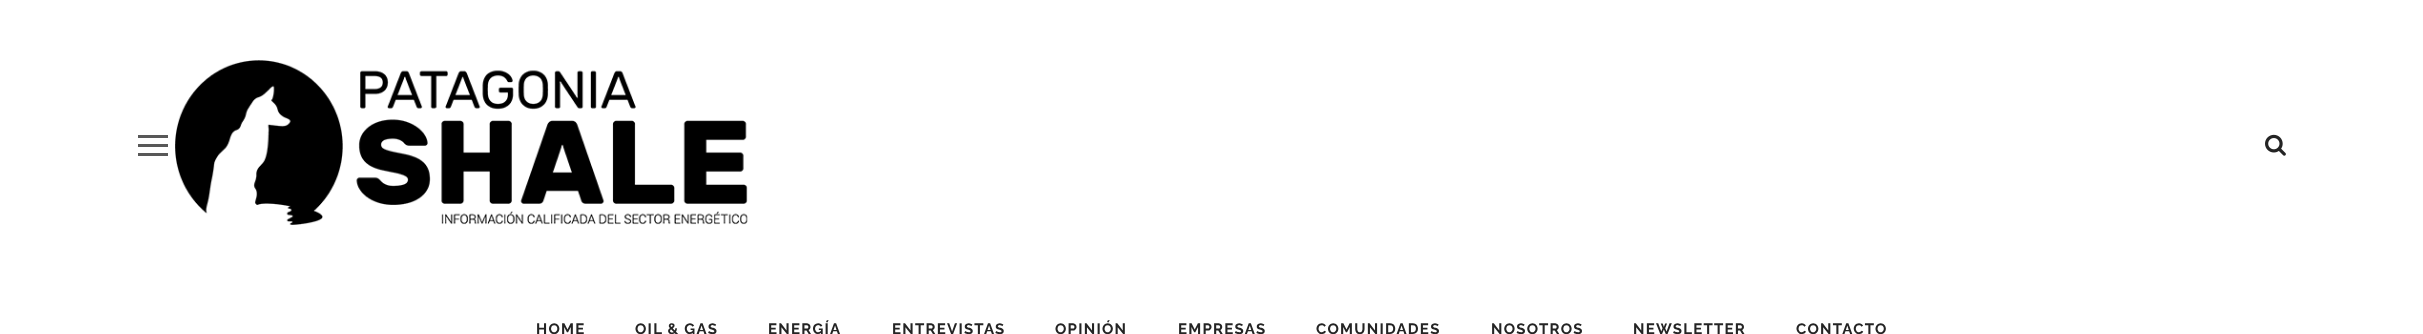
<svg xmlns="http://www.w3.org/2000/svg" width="2423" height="334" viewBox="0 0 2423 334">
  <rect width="100%" height="100%" fill="#ffffff"/>
  <rect x="138" y="144" width="30" height="3" fill="#585858"/>
  <rect x="138" y="135" width="30" height="3" fill="#585858"/>
  <rect x="138" y="153" width="30" height="3" fill="#585858"/>
  <image x="175" y="60" width="573" height="165" href="img1.png"/>
  <image x="2265" y="134" width="21" height="22" href="img2.png"/>
  <text x="536" y="334" font-family="Raleway" font-size="15" font-weight="bold" letter-spacing="1.25" fill="#242424">HOME</text>
  <text x="635" y="334" font-family="Raleway" font-size="15" font-weight="bold" letter-spacing="1.25" fill="#242424">OIL &amp; GAS</text>
  <text x="768" y="334" font-family="Raleway" font-size="15" font-weight="bold" letter-spacing="1.25" fill="#242424">ENERGÍA</text>
  <text x="892" y="334" font-family="Raleway" font-size="15" font-weight="bold" letter-spacing="1.25" fill="#242424">ENTREVISTAS</text>
  <text x="1055" y="334" font-family="Raleway" font-size="15" font-weight="bold" letter-spacing="1.25" fill="#242424">OPINIÓN</text>
  <text x="1178" y="334" font-family="Raleway" font-size="15" font-weight="bold" letter-spacing="1.25" fill="#242424">EMPRESAS</text>
  <text x="1316" y="334" font-family="Raleway" font-size="15" font-weight="bold" letter-spacing="1.25" fill="#242424">COMUNIDADES</text>
  <text x="1491" y="334" font-family="Raleway" font-size="15" font-weight="bold" letter-spacing="1.25" fill="#242424">NOSOTROS</text>
  <text x="1633" y="334" font-family="Raleway" font-size="15" font-weight="bold" letter-spacing="1.25" fill="#242424">NEWSLETTER</text>
  <text x="1796" y="334" font-family="Raleway" font-size="15" font-weight="bold" letter-spacing="1.25" fill="#242424">CONTACTO</text>
</svg>
